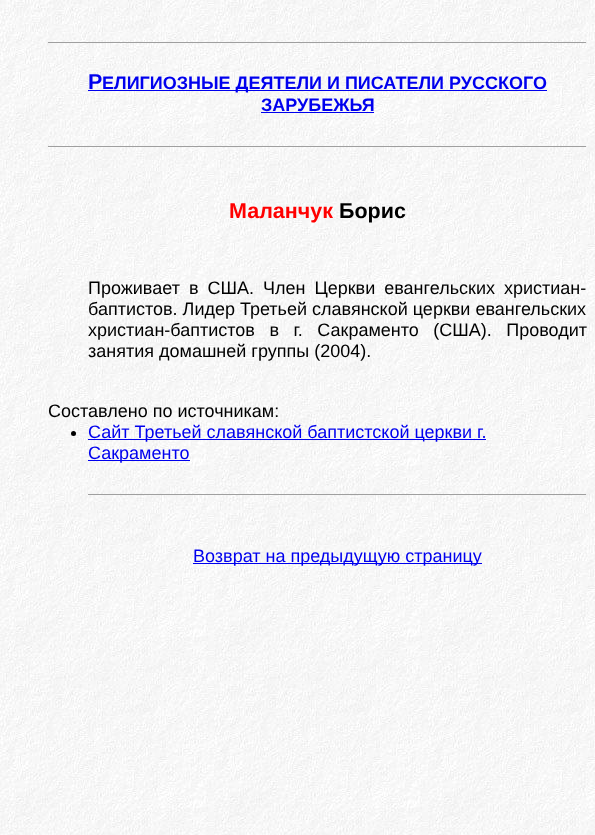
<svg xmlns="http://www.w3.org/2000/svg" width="595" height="835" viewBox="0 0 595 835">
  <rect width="100%" height="100%" fill="#ffffff"/>
  <image x="0" y="0" width="595" height="835" href="img1.png"/>
  <rect x="48" y="42" width="539" height="1" fill="#9f9f9f"/>
  <rect x="586" y="42" width="1" height="1" fill="#eeeeee"/>
  <text x="88" y="89" font-family="Liberation Sans" font-size="21.5" font-weight="bold" fill="#0000ee">Р</text>
  <rect x="88" y="90" width="459" height="1" fill="#0000ee"/>
  <text x="102" y="89" font-family="Liberation Sans" font-size="18" font-weight="bold" fill="#0000ee">ЕЛИГИОЗНЫЕ ДЕЯТЕЛИ И ПИСАТЕЛИ РУССКОГО</text>
  <text x="261" y="111" font-family="Liberation Sans" font-size="18" font-weight="bold" fill="#0000ee">ЗАРУБЕЖЬЯ</text>
  <rect x="261" y="112" width="113" height="1" fill="#0000ee"/>
  <rect x="48" y="146" width="539" height="1" fill="#9f9f9f"/>
  <rect x="586" y="146" width="1" height="1" fill="#eeeeee"/>
  <text x="229" y="218" font-family="Liberation Sans" font-size="21.5" font-weight="bold" fill="#ff0000">Маланчук</text>
  <text x="339" y="218" font-family="Liberation Sans" font-size="21.5" font-weight="bold" fill="#000000">Борис</text>
  <text x="88" y="294" word-spacing="4" font-family="Liberation Sans" font-size="18" fill="#000000">Проживает в США. Член Церкви евангельских христиан-</text>
  <text x="88" y="315" font-family="Liberation Sans" font-size="18" fill="#000000">баптистов. Лидер Третьей славянской церкви евангельских</text>
  <text x="88" y="336" word-spacing="9.5" font-family="Liberation Sans" font-size="18" fill="#000000">христиан-баптистов в г. Сакраменто (США). Проводит</text>
  <text x="88" y="357" font-family="Liberation Sans" font-size="18" fill="#000000">занятия домашней группы (2004).</text>
  <text x="48" y="417" font-family="Liberation Sans" font-size="18" fill="#000000">Составлено по источникам:</text>
  <circle cx="73.5" cy="433.5" r="2.5" fill="#000000"/>
  <rect x="88" y="439" width="398" height="1" fill="#0000ee"/>
  <text x="88" y="438" font-family="Liberation Sans" font-size="18" fill="#0000ee">Сайт Третьей славянской баптистской церкви г.</text>
  <rect x="88" y="460" width="102" height="1" fill="#0000ee"/>
  <text x="88" y="459" font-family="Liberation Sans" font-size="18" fill="#0000ee">Сакраменто</text>
  <rect x="88" y="494" width="499" height="1" fill="#9f9f9f"/>
  <rect x="586" y="494" width="1" height="1" fill="#eeeeee"/>
  <rect x="193" y="563" width="289" height="1" fill="#0000ee"/>
  <text x="193" y="562" font-family="Liberation Sans" font-size="18" fill="#0000ee">Возврат на предыдущую страницу</text>
</svg>
